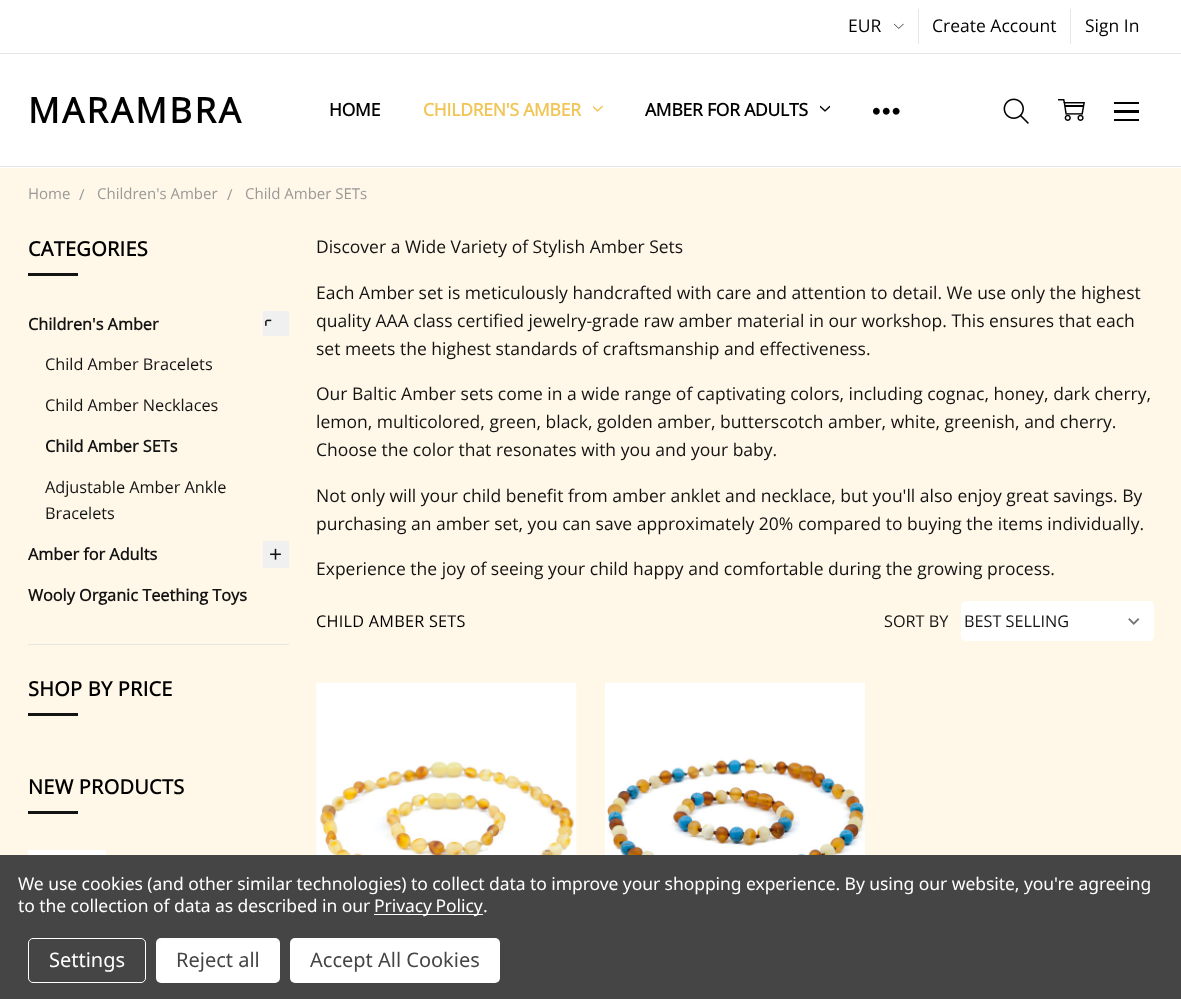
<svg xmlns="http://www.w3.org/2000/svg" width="1181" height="999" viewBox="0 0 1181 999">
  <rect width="100%" height="100%" fill="#fff7e8"/>
  <rect x="0" y="0" width="1181" height="168" fill="#ffffff"/>
  <rect x="0" y="166" width="1181" height="1" fill="#e5e5e5"/>
  <rect x="0" y="53" width="1181" height="1" fill="#e6e6e6"/>
  <text x="848" y="32" font-family="Open Sans" font-size="17.5" fill="#000000">EUR</text>
  <image x="894" y="23" width="10" height="6" href="img1.png"/>
  <rect x="918" y="9" width="1" height="35" fill="#e6e6e6"/>
  <text x="932" y="32" font-family="Open Sans" font-size="17.5" fill="#000000">Create Account</text>
  <rect x="1070" y="9" width="1" height="35" fill="#e6e6e6"/>
  <text x="1085" y="32" font-family="Open Sans" font-size="17.5" fill="#000000">Sign In</text>
  <text x="28" y="123" font-family="Open Sans" font-size="35" font-weight="bold" letter-spacing="2.5" fill="#000000">MARAMBRA</text>
  <text x="329" y="116" font-family="Open Sans" font-size="17.5" font-weight="bold" letter-spacing="-0.2" fill="#000000">HOME</text>
  <text x="423" y="116" font-family="Open Sans" font-size="17.5" font-weight="bold" letter-spacing="-0.2" fill="#f1c556">CHILDREN'S AMBER</text>
  <image x="593" y="105" width="10" height="7" href="img2.png"/>
  <text x="645" y="116" font-family="Open Sans" font-size="17.5" font-weight="bold" letter-spacing="-0.2" fill="#000000">AMBER FOR ADULTS</text>
  <image x="820" y="105" width="10" height="7" href="img3.png"/>
  <image x="873" y="107" width="27" height="8" href="img4.png"/>
  <image x="1003" y="98" width="26" height="26" href="img5.png"/>
  <image x="1058" y="99" width="27" height="22" href="img6.png"/>
  <rect x="1114" y="102" width="25" height="2" fill="#000000"/>
  <rect x="1114" y="110" width="25" height="3" fill="#000000"/>
  <rect x="1114" y="119" width="25" height="2" fill="#000000"/>
  <text x="28" y="199" font-family="Open Sans" font-size="15" fill="#999999">Home</text>
  <text x="79" y="200" font-family="Open Sans" font-size="15" fill="#999999">/</text>
  <text x="97" y="199" font-family="Open Sans" font-size="15" fill="#999999">Children's Amber</text>
  <text x="227" y="200" font-family="Open Sans" font-size="15" fill="#999999">/</text>
  <text x="245" y="199" font-family="Open Sans" font-size="15" fill="#999999">Child Amber SETs</text>
  <text x="28" y="256" font-family="Open Sans" font-size="20" font-weight="bold" letter-spacing="0.25" fill="#000000">CATEGORIES</text>
  <rect x="28" y="273" width="50" height="3" fill="#131313"/>
  <text x="28" y="330" font-family="Open Sans" font-size="16.25" font-weight="bold" fill="#131313">Children's Amber</text>
  <rect x="263" y="311" width="26" height="25" fill="#f0f0f0"/>
  <image x="264" y="319" width="8" height="7" href="img7.png"/>
  <text x="45" y="370" font-family="Open Sans" font-size="16.25" fill="#131313">Child Amber Bracelets</text>
  <text x="45" y="411" font-family="Open Sans" font-size="16.25" fill="#131313">Child Amber Necklaces</text>
  <text x="45" y="452" font-family="Open Sans" font-size="16.25" font-weight="bold" fill="#131313">Child Amber SETs</text>
  <text x="45" y="493" font-family="Open Sans" font-size="16.25" fill="#131313">Adjustable Amber Ankle</text>
  <text x="45" y="519" font-family="Open Sans" font-size="16.25" fill="#131313">Bracelets</text>
  <text x="28" y="560" font-family="Open Sans" font-size="16.25" font-weight="bold" fill="#131313">Amber for Adults</text>
  <rect x="263" y="541" width="26" height="27" fill="#f0f0f0"/>
  <image x="270" y="548" width="11" height="12" href="img8.png"/>
  <text x="28" y="601" font-family="Open Sans" font-size="16.25" font-weight="bold" fill="#131313">Wooly Organic Teething Toys</text>
  <rect x="28" y="644" width="261" height="1" fill="#e5e5e5"/>
  <text x="28" y="696" font-family="Open Sans" font-size="20" font-weight="bold" letter-spacing="0.25" fill="#000000">SHOP BY PRICE</text>
  <rect x="28" y="713" width="50" height="3" fill="#131313"/>
  <text x="28" y="794" font-family="Open Sans" font-size="20" font-weight="bold" letter-spacing="0.25" fill="#000000">NEW PRODUCTS</text>
  <rect x="28" y="811" width="50" height="3" fill="#131313"/>
  <rect x="28" y="850" width="78" height="5" fill="#ffffff"/>
  <text x="316" y="253" font-family="Open Sans" font-size="17.5" fill="#131313">Discover a Wide Variety of Stylish Amber Sets</text>
  <text x="316" y="299" font-family="Open Sans" font-size="17.5" fill="#131313">Each Amber set is meticulously handcrafted with care and attention to detail. We use only the highest</text>
  <text x="316" y="327" font-family="Open Sans" font-size="17.5" fill="#131313">quality AAA class certified jewelry-grade raw amber material in our workshop. This ensures that each</text>
  <text x="316" y="355" font-family="Open Sans" font-size="17.5" fill="#131313">set meets the highest standards of craftsmanship and effectiveness.</text>
  <text x="316" y="400" font-family="Open Sans" font-size="17.5" fill="#131313">Our Baltic Amber sets come in a wide range of captivating colors, including cognac, honey, dark cherry,</text>
  <text x="316" y="428" font-family="Open Sans" font-size="17.5" fill="#131313">lemon, multicolored, green, black, golden amber, butterscotch amber, white, greenish, and cherry.</text>
  <text x="316" y="456" font-family="Open Sans" font-size="17.5" fill="#131313">Choose the color that resonates with you and your baby.</text>
  <text x="316" y="502" font-family="Open Sans" font-size="17.5" fill="#131313">Not only will your child benefit from amber anklet and necklace, but you'll also enjoy great savings. By</text>
  <text x="316" y="530" font-family="Open Sans" font-size="17.5" fill="#131313">purchasing an amber set, you can save approximately 20% compared to buying the items individually.</text>
  <text x="316" y="575" font-family="Open Sans" font-size="17.5" fill="#131313">Experience the joy of seeing your child happy and comfortable during the growing process.</text>
  <text x="316" y="627" font-family="Open Sans" font-size="16.25" letter-spacing="0.25" fill="#000000">CHILD AMBER SETS</text>
  <text x="884" y="627" font-family="Open Sans" font-size="16.25" fill="#131313">SORT BY</text>
  <rect x="961" y="601" width="193" height="40" rx="5" fill="#ffffff"/>
  <image x="1128" y="618" width="12" height="7" href="img9.png"/>
  <text x="964" y="627" font-family="Open Sans" font-size="16.25" fill="#131313">BEST SELLING</text>
  <image x="316" y="682" width="261" height="173" href="img10.png"/>
  <image x="605" y="682" width="260" height="173" href="img11.png"/>
  <rect x="0" y="855" width="1181" height="144" fill="#454545"/>
  <text x="18" y="890" font-family="Noto Sans" font-size="17.5" letter-spacing="-0.06" fill="#ffffff">We use cookies (and other similar technologies) to collect data to improve your shopping experience. By using our website, you're agreeing</text>
  <text x="18" y="912" font-family="Noto Sans" font-size="17.5" letter-spacing="-0.06" fill="#ffffff">to the collection of data as described in our</text>
  <rect x="374" y="914" width="109" height="1" fill="#ffffff"/>
  <text x="374" y="912" word-spacing="-1" font-family="Noto Sans" font-size="17.5" letter-spacing="-0.06" fill="#ffffff">Privacy Policy</text>
  <text x="483" y="912" font-family="Noto Sans" font-size="17.5" letter-spacing="-0.06" fill="#ffffff">.</text>
  <rect x="28.5" y="938.5" width="117" height="44" rx="4.5" fill="none" stroke="#ffffff"/>
  <text x="49" y="967" font-family="Noto Sans" font-size="20" fill="#ffffff">Settings</text>
  <rect x="156" y="938" width="124" height="45" rx="5" fill="#ffffff"/>
  <text x="176" y="967" font-family="Noto Sans" font-size="20" fill="#454545">Reject all</text>
  <rect x="290" y="938" width="210" height="45" rx="5" fill="#ffffff"/>
  <text x="310" y="967" font-family="Noto Sans" font-size="20" fill="#454545">Accept All Cookies</text>
</svg>
